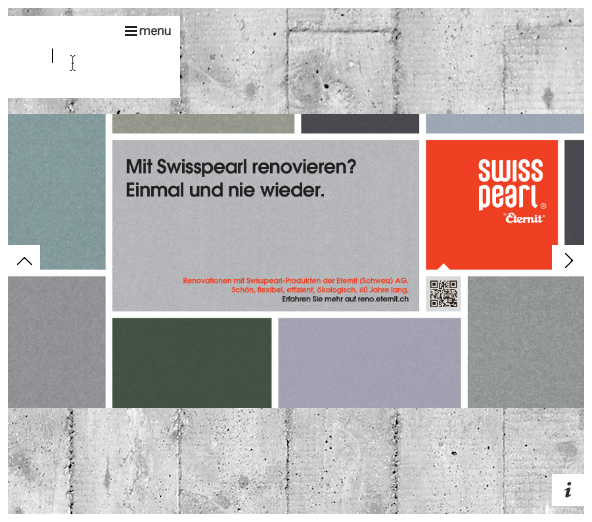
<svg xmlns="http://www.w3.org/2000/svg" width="592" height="522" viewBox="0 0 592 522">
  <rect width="100%" height="100%" fill="#ffffff"/>
  <image x="8" y="8" width="576" height="506" href="img1.png"/>
  <image x="8" y="114" width="576" height="294" href="img2.png"/>
  <rect x="8" y="245" width="32" height="31" fill="#ffffff"/>
  <image x="17" y="257" width="15" height="8" href="img3.png"/>
  <rect x="552" y="245" width="32" height="31" fill="#ffffff"/>
  <image x="565" y="253" width="8" height="15" href="img4.png"/>
  <rect x="552" y="474" width="32" height="32" fill="#ffffff"/>
  <image x="564" y="482" width="8" height="16" href="img5.png"/>
  <rect x="8" y="16" width="172" height="82" fill="#ffffff"/>
  <image x="125" y="26" width="12" height="10" href="img6.png"/>
  <text x="139" y="35" font-family="Pontano Sans" font-size="13" font-weight="bold" fill="#3b3a37">menu</text>
  <image x="52" y="48" width="24" height="23" href="img7.png"/>
</svg>
